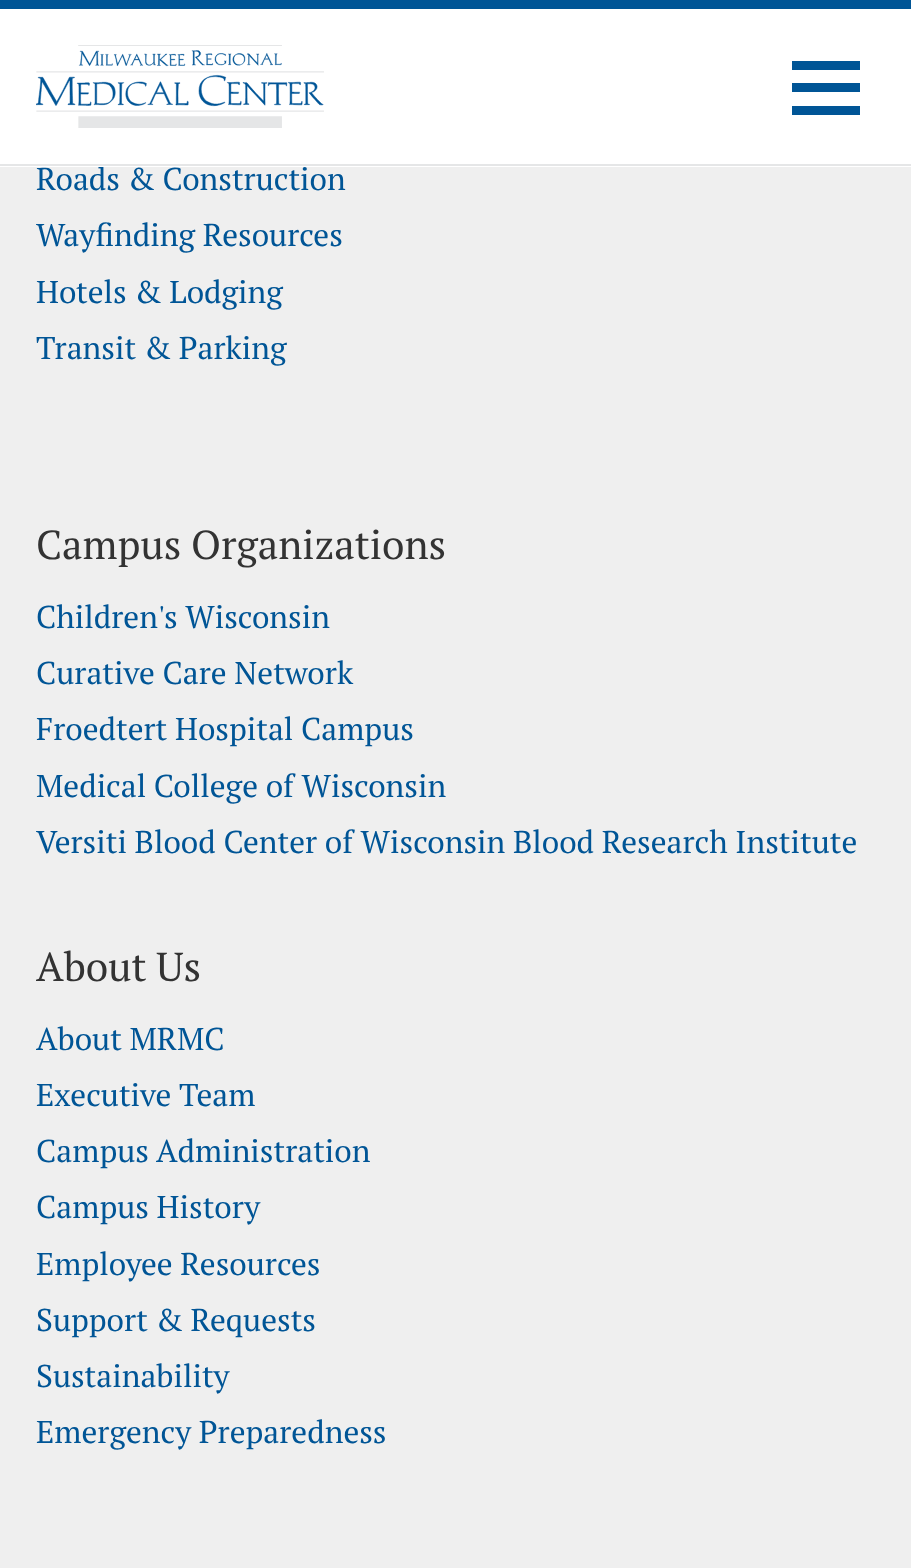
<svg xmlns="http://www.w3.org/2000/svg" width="911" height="1568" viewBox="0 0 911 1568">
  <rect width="100%" height="100%" fill="#efefef"/>
  <text x="36" y="190" font-family="PT Serif" font-size="31.5" fill="#005596">Roads &amp; Construction</text>
  <rect x="0" y="9" width="911" height="158" fill="#ffffff"/>
  <rect x="0" y="0" width="911" height="9" fill="#005596"/>
  <rect x="0" y="164" width="911" height="2" fill="#e5e6e7"/>
  <image x="36" y="45" width="288" height="83" href="img1.png"/>
  <path d="M860 70H792V61H860ZM860 83H792V92H860ZM860 106H792V115H860Z" fill="#005596"/>
  <text x="36" y="246" font-family="PT Serif" font-size="31.5" fill="#005596">Wayfinding Resources</text>
  <text x="36" y="303" font-family="PT Serif" font-size="31.5" fill="#005596">Hotels &amp; Lodging</text>
  <text x="36" y="359" font-family="PT Serif" font-size="31.5" fill="#005596">Transit &amp; Parking</text>
  <text x="36" y="559" font-family="PT Serif" font-size="40.5" fill="#333333">Campus Organizations</text>
  <text x="36" y="628" font-family="PT Serif" font-size="31.5" fill="#005596">Children's Wisconsin</text>
  <text x="36" y="684" font-family="PT Serif" font-size="31.5" fill="#005596">Curative Care Network</text>
  <text x="36" y="740" font-family="PT Serif" font-size="31.5" fill="#005596">Froedtert Hospital Campus</text>
  <text x="36" y="797" font-family="PT Serif" font-size="31.5" fill="#005596">Medical College of Wisconsin</text>
  <text x="36" y="853" font-family="PT Serif" font-size="31.5" fill="#005596">Versiti Blood Center of Wisconsin Blood Research Institute</text>
  <text x="36" y="981" font-family="PT Serif" font-size="40.5" fill="#333333">About Us</text>
  <text x="36" y="1050" font-family="PT Serif" font-size="31.5" fill="#005596">About MRMC</text>
  <text x="36" y="1106" font-family="PT Serif" font-size="31.5" fill="#005596">Executive Team</text>
  <text x="36" y="1162" font-family="PT Serif" font-size="31.5" fill="#005596">Campus Administration</text>
  <text x="36" y="1218" font-family="PT Serif" font-size="31.5" fill="#005596">Campus History</text>
  <text x="36" y="1275" font-family="PT Serif" font-size="31.5" fill="#005596">Employee Resources</text>
  <text x="36" y="1331" font-family="PT Serif" font-size="31.5" fill="#005596">Support &amp; Requests</text>
  <text x="36" y="1387" font-family="PT Serif" font-size="31.5" fill="#005596">Sustainability</text>
  <text x="36" y="1443" font-family="PT Serif" font-size="31.5" fill="#005596">Emergency Preparedness</text>
</svg>
